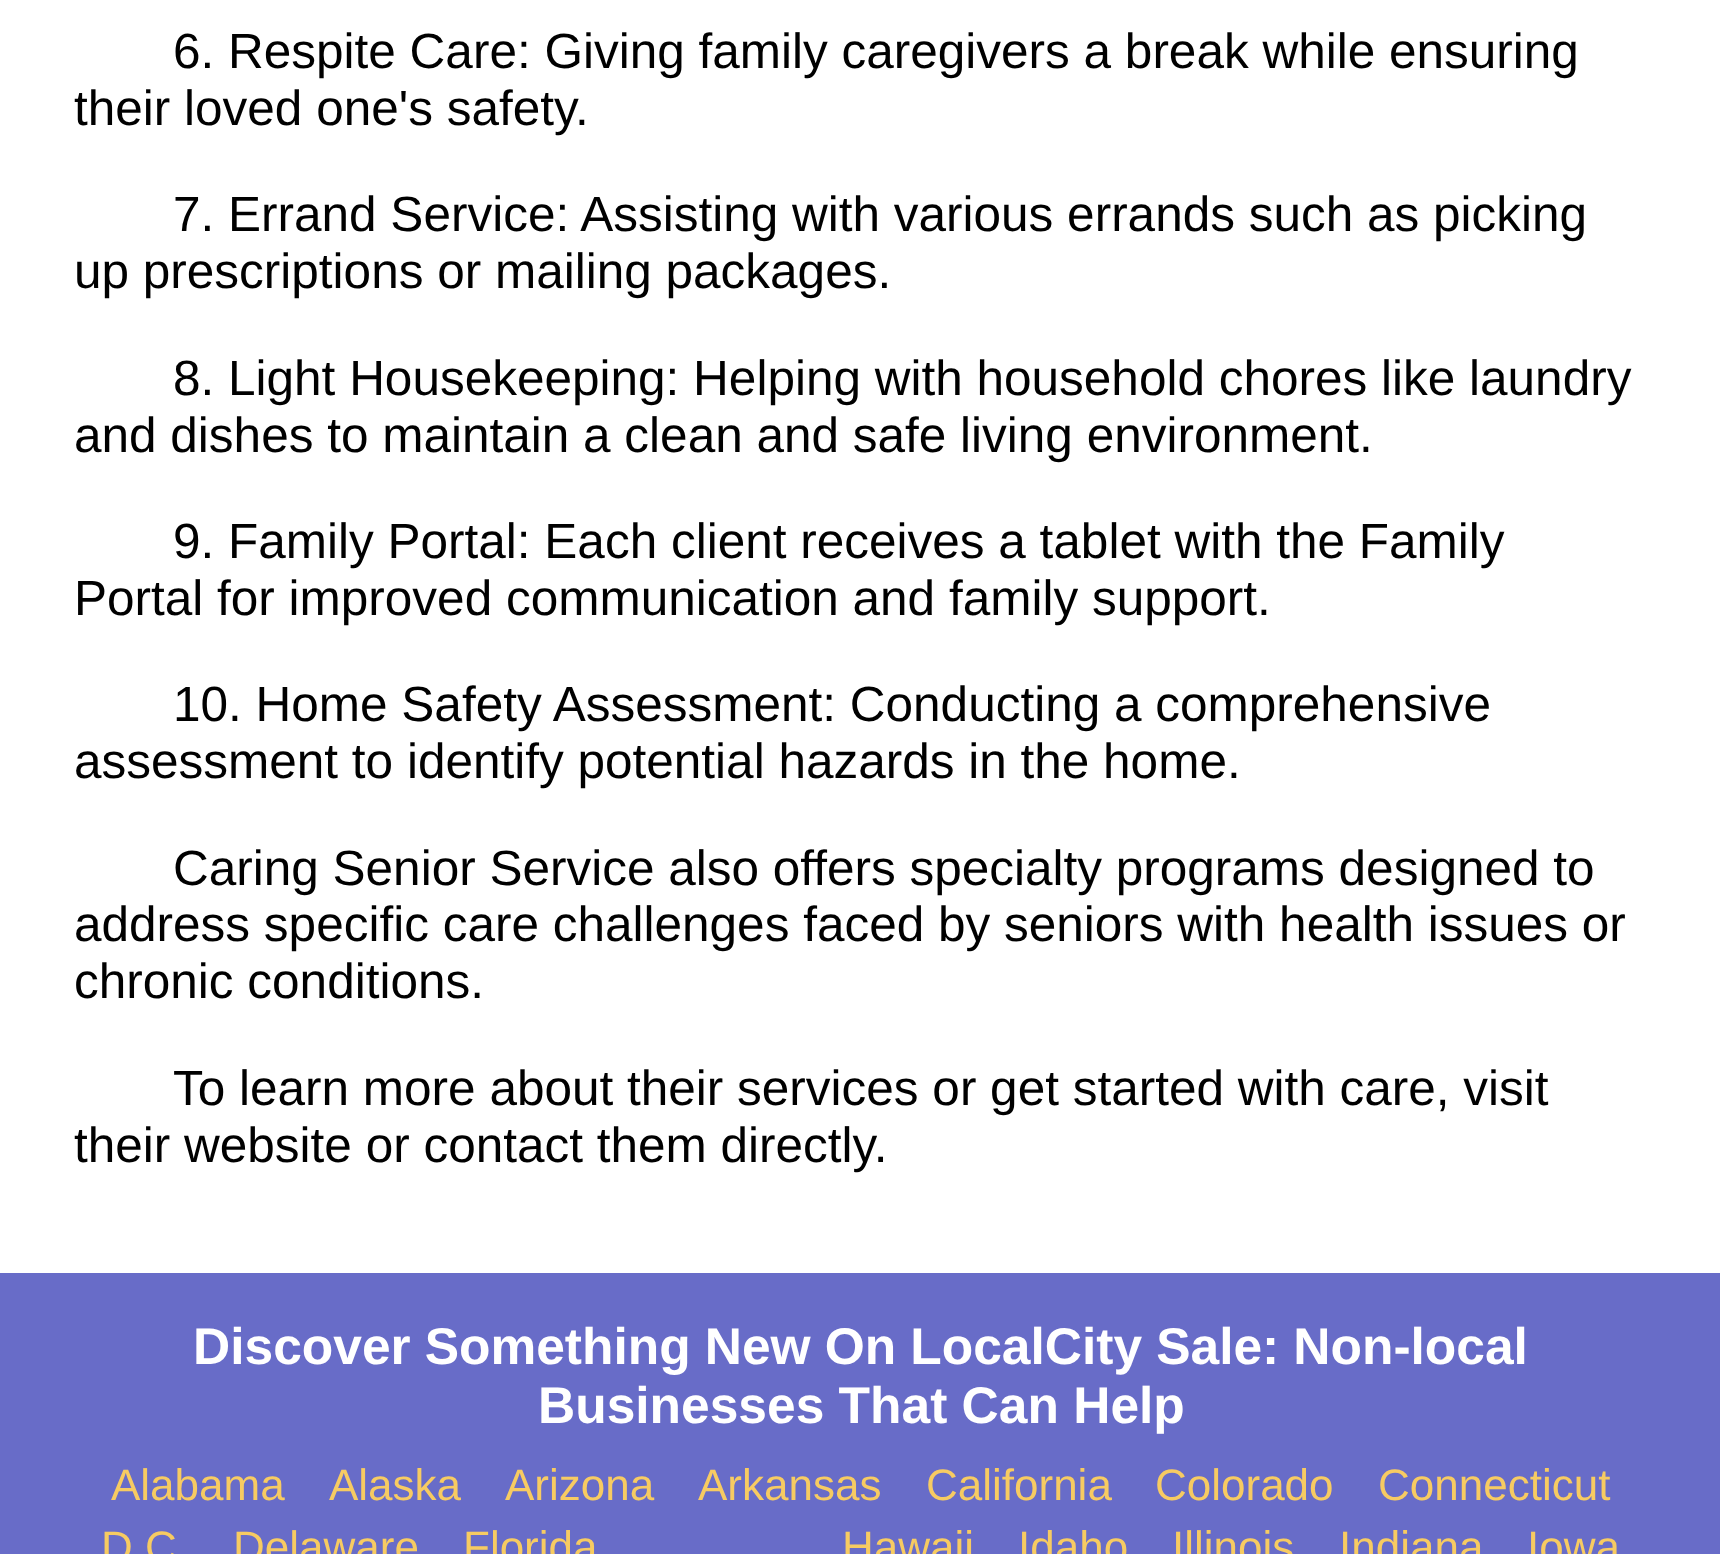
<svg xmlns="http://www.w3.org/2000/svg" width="1720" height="1554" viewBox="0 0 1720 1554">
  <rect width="100%" height="100%" fill="#ffffff"/>
  <text x="173" y="68" font-family="Liberation Sans" font-size="49.5" fill="#000000">6. Respite Care: Giving family caregivers a break while ensuring</text>
  <text x="74" y="125" font-family="Liberation Sans" font-size="49.5" fill="#000000">their loved one's safety.</text>
  <text x="173" y="231" font-family="Liberation Sans" font-size="49.5" fill="#000000">7. Errand Service: Assisting with various errands such as picking</text>
  <text x="74" y="288" font-family="Liberation Sans" font-size="49.5" fill="#000000">up prescriptions or mailing packages.</text>
  <text x="173" y="395" font-family="Liberation Sans" font-size="49.5" fill="#000000">8. Light Housekeeping: Helping with household chores like laundry</text>
  <text x="74" y="452" font-family="Liberation Sans" font-size="49.5" fill="#000000">and dishes to maintain a clean and safe living environment.</text>
  <text x="173" y="558" font-family="Liberation Sans" font-size="49.5" fill="#000000">9. Family Portal: Each client receives a tablet with the Family</text>
  <text x="74" y="615" font-family="Liberation Sans" font-size="49.5" fill="#000000">Portal for improved communication and family support.</text>
  <text x="173" y="721" font-family="Liberation Sans" font-size="49.5" fill="#000000">10. Home Safety Assessment: Conducting a comprehensive</text>
  <text x="74" y="778" font-family="Liberation Sans" font-size="49.5" fill="#000000">assessment to identify potential hazards in the home.</text>
  <text x="173" y="885" font-family="Liberation Sans" font-size="49.5" fill="#000000">Caring Senior Service also offers specialty programs designed to</text>
  <text x="74" y="941" font-family="Liberation Sans" font-size="49.5" fill="#000000">address specific care challenges faced by seniors with health issues or</text>
  <text x="74" y="998" font-family="Liberation Sans" font-size="49.5" fill="#000000">chronic conditions.</text>
  <text x="173" y="1105" font-family="Liberation Sans" font-size="49.5" fill="#000000">To learn more about their services or get started with care, visit</text>
  <text x="74" y="1162" font-family="Liberation Sans" font-size="49.5" fill="#000000">their website or contact them directly.</text>
  <rect x="0" y="1273" width="1720" height="281" fill="#686cc8"/>
  <text x="193" y="1364" word-spacing="-0.25" font-family="Liberation Sans" font-size="51.5" font-weight="bold" fill="#ffffff">Discover Something New On LocalCity Sale: Non-local</text>
  <text x="538" y="1423" font-family="Liberation Sans" font-size="51.5" font-weight="bold" fill="#ffffff">Businesses That Can Help</text>
  <text x="111" y="1500" font-family="Liberation Sans" font-size="44" fill="#f7cb62">Alabama</text>
  <text x="329" y="1500" font-family="Liberation Sans" font-size="44" fill="#f7cb62">Alaska</text>
  <text x="505" y="1500" font-family="Liberation Sans" font-size="44" fill="#f7cb62">Arizona</text>
  <text x="698" y="1500" font-family="Liberation Sans" font-size="44" fill="#f7cb62">Arkansas</text>
  <text x="926" y="1500" font-family="Liberation Sans" font-size="44" fill="#f7cb62">California</text>
  <text x="1155" y="1500" font-family="Liberation Sans" font-size="44" fill="#f7cb62">Colorado</text>
  <text x="1378" y="1500" font-family="Liberation Sans" font-size="44" fill="#f7cb62">Connecticut</text>
  <text x="101" y="1562" font-family="Liberation Sans" font-size="44" fill="#f7cb62">D.C</text>
  <text x="233" y="1562" font-family="Liberation Sans" font-size="44" fill="#f7cb62">Delaware</text>
  <text x="463" y="1562" font-family="Liberation Sans" font-size="44" fill="#f7cb62">Florida</text>
  <text x="842" y="1562" font-family="Liberation Sans" font-size="44" fill="#f7cb62">Hawaii</text>
  <text x="1018" y="1562" font-family="Liberation Sans" font-size="44" fill="#f7cb62">Idaho</text>
  <text x="1172" y="1562" font-family="Liberation Sans" font-size="44" fill="#f7cb62">Illinois</text>
  <text x="1339" y="1562" font-family="Liberation Sans" font-size="44" fill="#f7cb62">Indiana</text>
  <text x="1527" y="1562" font-family="Liberation Sans" font-size="44" fill="#f7cb62">Iowa</text>
</svg>
